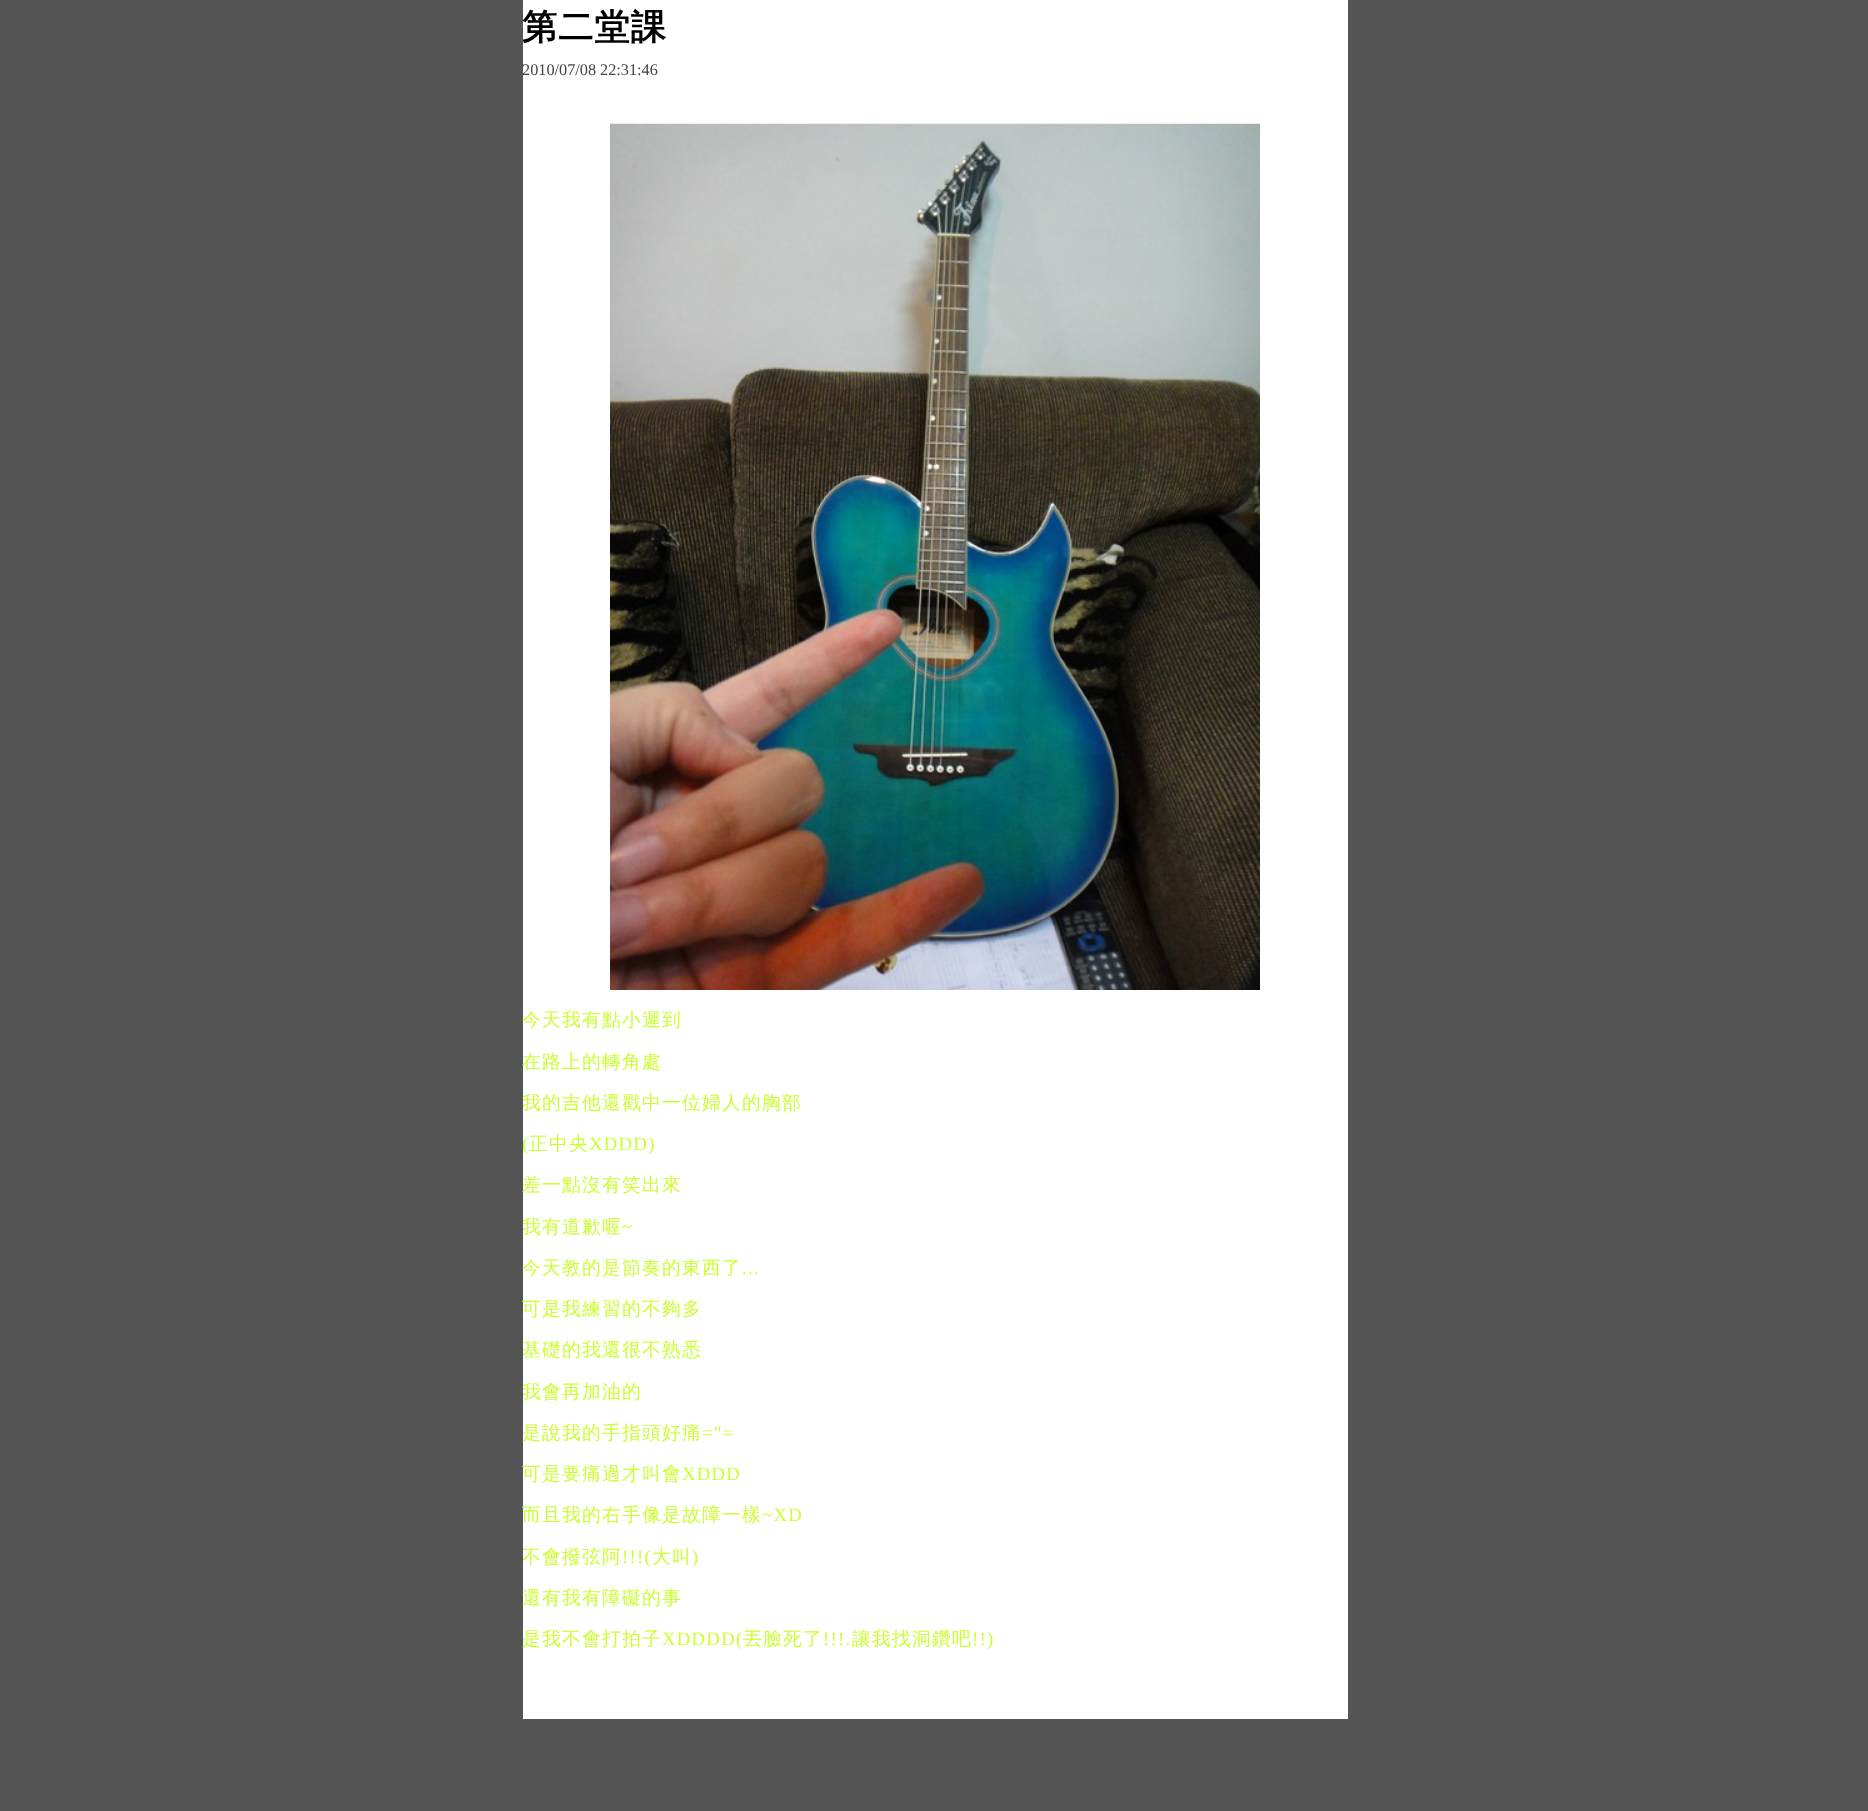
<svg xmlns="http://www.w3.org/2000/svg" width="1868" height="1811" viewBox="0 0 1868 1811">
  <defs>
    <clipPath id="clip1"><rect x="523" y="0" width="825" height="1719"/></clipPath>
  </defs>
  <rect width="100%" height="100%" fill="#555555"/>
  <rect x="523" y="0" width="825" height="1719" fill="#ffffff"/>
  <text x="522" y="39" font-family="WenQuanYi Zen Hei" font-size="35" font-weight="bold" letter-spacing="1.25" fill="#000000">第二堂課</text>
  <text x="522" y="75" font-family="Liberation Serif" font-size="16.25" fill="#444444">2010/07/08 22:31:46</text>
  <image x="610" y="123" width="650" height="867" href="img1.png"/>
  <text x="522" y="1026" font-family="WenQuanYi Zen Hei" font-size="18.75" font-weight="500" letter-spacing="1.25" fill="#ccff33">今天我有點小遲到</text>
  <text x="522" y="1068" font-family="WenQuanYi Zen Hei" font-size="18.75" font-weight="500" letter-spacing="1.25" fill="#ccff33">在路上的轉角處</text>
  <g clip-path="url(#clip1)">
    <text x="522" y="1109" font-family="WenQuanYi Zen Hei" font-size="18.75" font-weight="500" letter-spacing="1.25" fill="#ccff33">我的吉他還戳中一位婦人的胸部</text>
    <text x="522" y="1150" font-family="Liberation Serif" font-size="18.75" letter-spacing="1.25" fill="#ccff33">(</text>
  </g>
  <text x="529" y="1150" font-family="WenQuanYi Zen Hei" font-size="18.75" font-weight="500" letter-spacing="1.25" fill="#ccff33">正中央</text>
  <text x="589" y="1150" font-family="Liberation Serif" font-size="18.75" letter-spacing="1.25" fill="#ccff33">XDDD)</text>
  <text x="522" y="1191" font-family="WenQuanYi Zen Hei" font-size="18.75" font-weight="500" letter-spacing="1.25" fill="#ccff33">差一點沒有笑出來</text>
  <g clip-path="url(#clip1)">
    <text x="522" y="1233" font-family="WenQuanYi Zen Hei" font-size="18.75" font-weight="500" letter-spacing="1.25" fill="#ccff33">我有道歉喔</text>
  </g>
  <text x="622" y="1233" font-family="Liberation Serif" font-size="18.75" letter-spacing="1.25" fill="#ccff33">~</text>
  <text x="522" y="1274" font-family="WenQuanYi Zen Hei" font-size="18.75" font-weight="500" letter-spacing="1.25" fill="#ccff33">今天教的是節奏的東西了</text>
  <text x="742" y="1274" font-family="Liberation Serif" font-size="18.75" letter-spacing="1.25" fill="#ccff33">...</text>
  <text x="522" y="1315" font-family="WenQuanYi Zen Hei" font-size="18.75" font-weight="500" letter-spacing="1.25" fill="#ccff33">可是我練習的不夠多</text>
  <g clip-path="url(#clip1)">
    <text x="522" y="1356" font-family="WenQuanYi Zen Hei" font-size="18.75" font-weight="500" letter-spacing="1.25" fill="#ccff33">基礎的我還很不熟悉</text>
    <text x="522" y="1398" font-family="WenQuanYi Zen Hei" font-size="18.75" font-weight="500" letter-spacing="1.25" fill="#ccff33">我會再加油的</text>
  </g>
  <text x="522" y="1439" font-family="WenQuanYi Zen Hei" font-size="18.75" font-weight="500" letter-spacing="1.25" fill="#ccff33">是說我的手指頭好痛</text>
  <text x="702" y="1439" font-family="Liberation Serif" font-size="18.75" letter-spacing="1.25" fill="#ccff33">="=</text>
  <text x="522" y="1480" font-family="WenQuanYi Zen Hei" font-size="18.75" font-weight="500" letter-spacing="1.25" fill="#ccff33">可是要痛過才叫會</text>
  <text x="682" y="1480" font-family="Liberation Serif" font-size="18.75" letter-spacing="1.25" fill="#ccff33">XDDD</text>
  <text x="522" y="1521" font-family="WenQuanYi Zen Hei" font-size="18.75" font-weight="500" letter-spacing="1.25" fill="#ccff33">而且我的右手像是故障一樣</text>
  <text x="762" y="1521" font-family="Liberation Serif" font-size="18.75" letter-spacing="1.25" fill="#ccff33">~XD</text>
  <g clip-path="url(#clip1)">
    <text x="522" y="1563" font-family="WenQuanYi Zen Hei" font-size="18.75" font-weight="500" letter-spacing="1.25" fill="#ccff33">不會撥弦阿</text>
  </g>
  <text x="622" y="1563" font-family="Liberation Serif" font-size="18.75" letter-spacing="1.25" fill="#ccff33">!!!(</text>
  <text x="652" y="1563" font-family="WenQuanYi Zen Hei" font-size="18.75" font-weight="500" letter-spacing="1.25" fill="#ccff33">大叫</text>
  <text x="692" y="1563" font-family="Liberation Serif" font-size="18.75" letter-spacing="1.25" fill="#ccff33">)</text>
  <text x="522" y="1604" font-family="WenQuanYi Zen Hei" font-size="18.75" font-weight="500" letter-spacing="1.25" fill="#ccff33">還有我有障礙的事</text>
  <text x="522" y="1645" font-family="WenQuanYi Zen Hei" font-size="18.75" font-weight="500" letter-spacing="1.25" fill="#ccff33">是我不會打拍子</text>
  <text x="662" y="1645" font-family="Liberation Serif" font-size="18.75" letter-spacing="1.25" fill="#ccff33">XDDDD(</text>
  <text x="743" y="1645" font-family="WenQuanYi Zen Hei" font-size="18.75" font-weight="500" letter-spacing="1.25" fill="#ccff33">丟臉死了</text>
  <text x="823" y="1645" font-family="Liberation Serif" font-size="18.75" letter-spacing="1.25" fill="#ccff33">!!!.</text>
  <text x="852" y="1645" font-family="WenQuanYi Zen Hei" font-size="18.75" font-weight="500" letter-spacing="1.25" fill="#ccff33">讓我找洞鑽吧</text>
  <text x="972" y="1645" font-family="Liberation Serif" font-size="18.75" letter-spacing="1.25" fill="#ccff33">!!)</text>
</svg>
